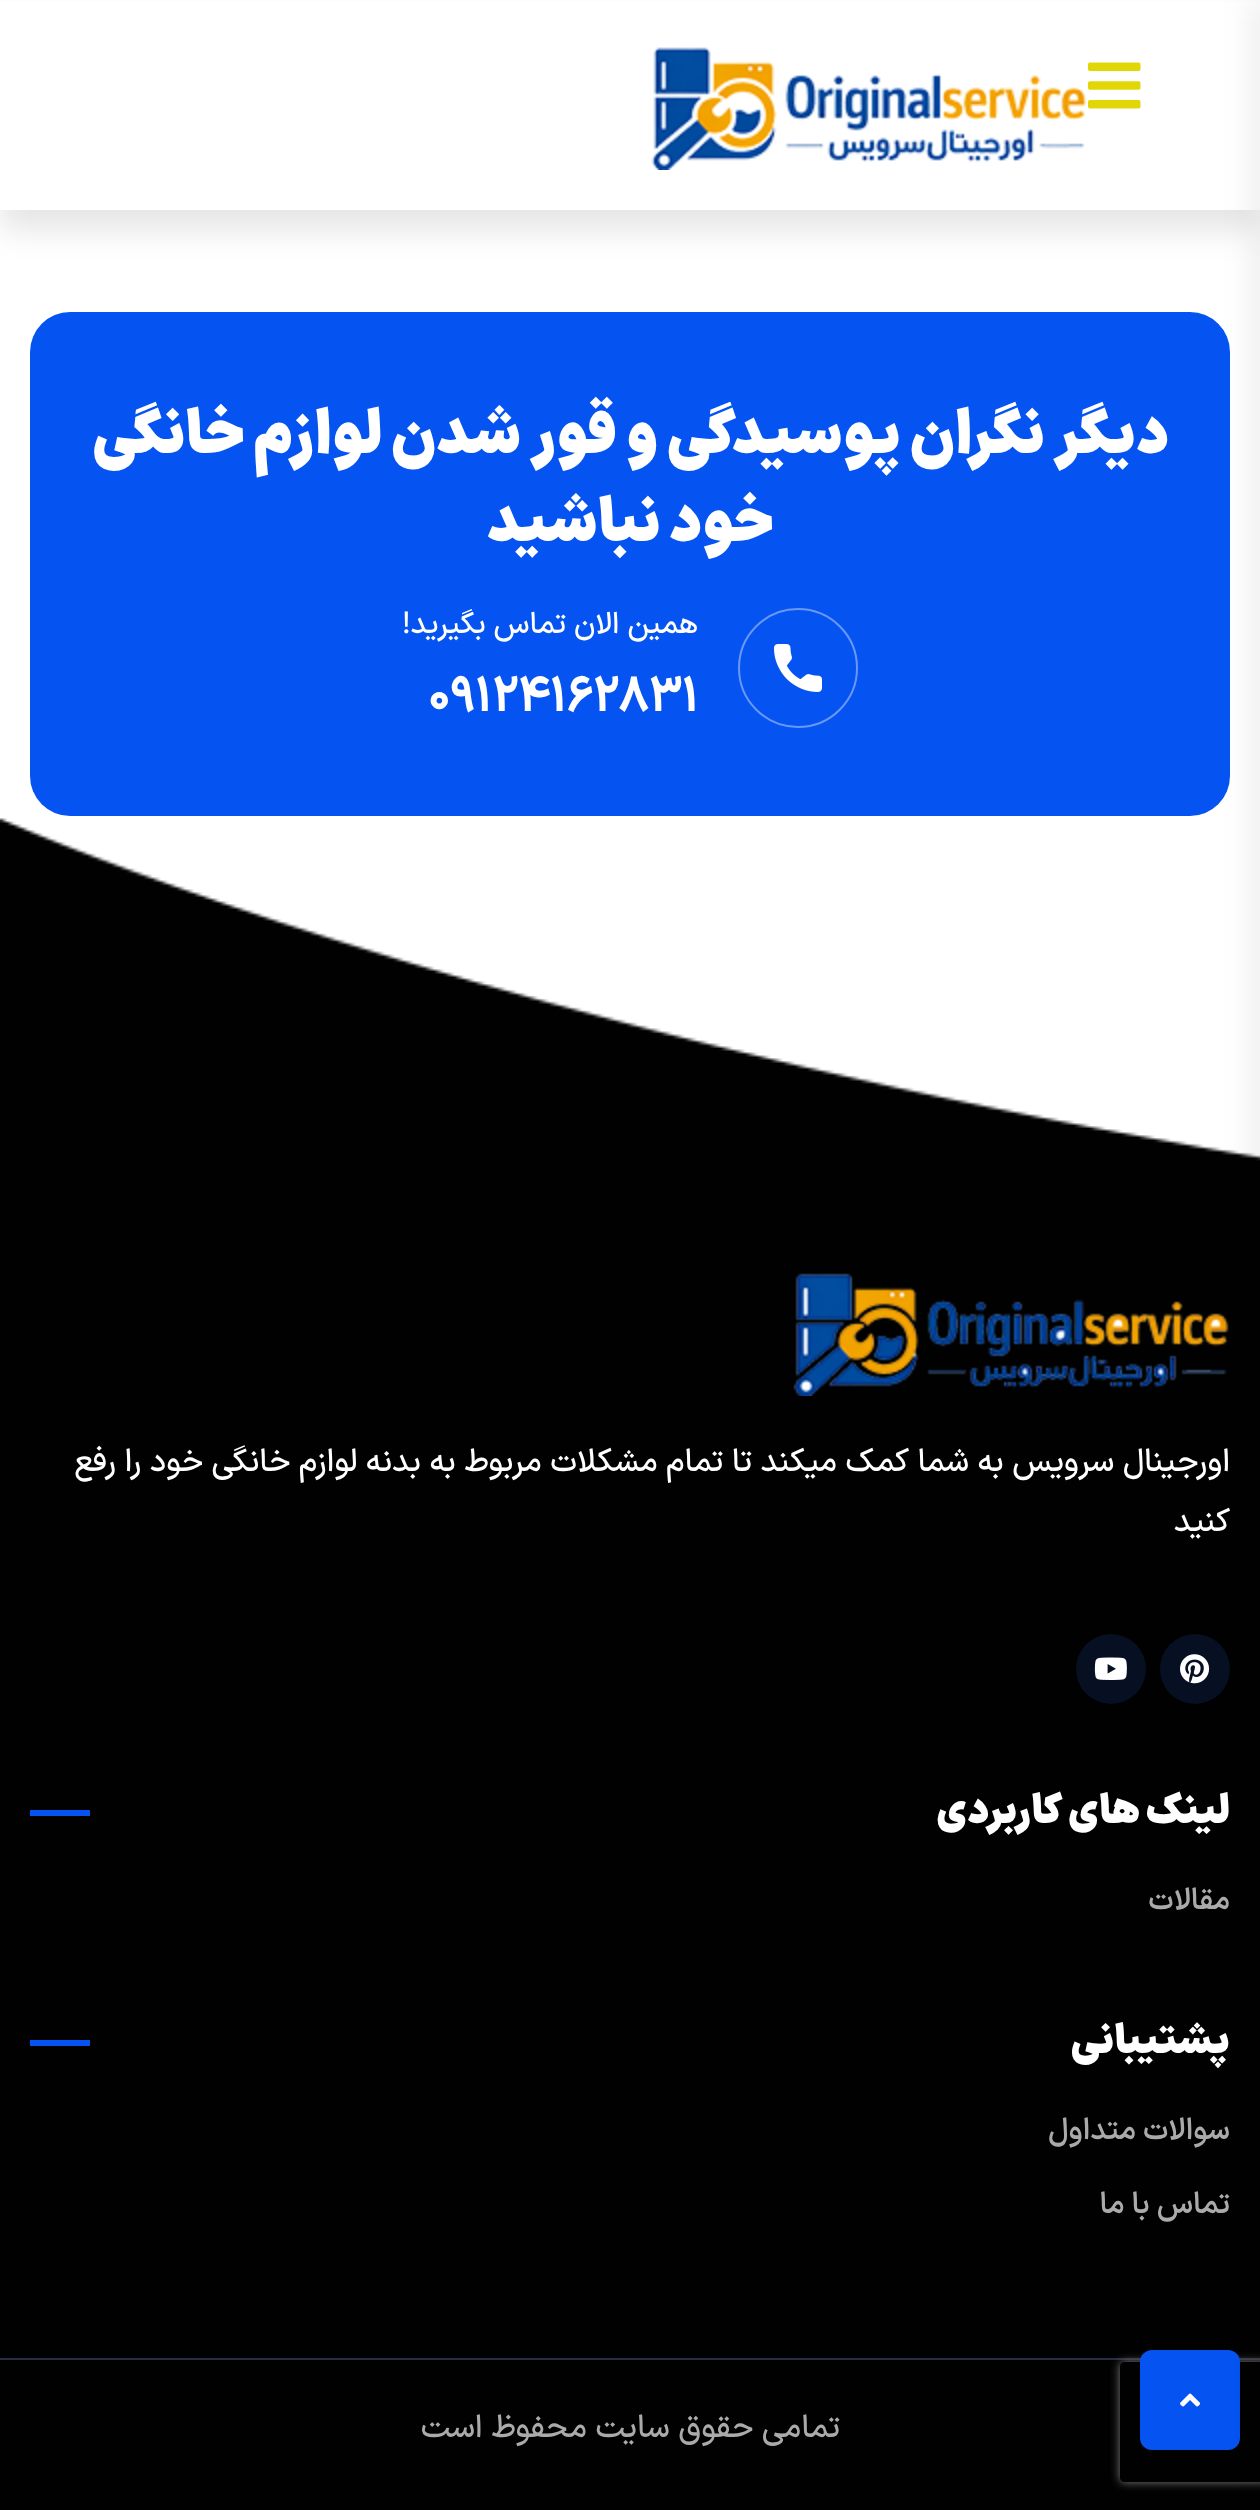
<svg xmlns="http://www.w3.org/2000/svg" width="1260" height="2510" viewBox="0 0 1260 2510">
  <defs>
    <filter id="blur1" x="-50%" y="-200%" width="200%" height="500%"><feGaussianBlur stdDeviation="15"/></filter>
    <clipPath id="clip1"><path d="M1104 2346H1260V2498H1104ZM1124 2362H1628C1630 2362 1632 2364 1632 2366V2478C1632 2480 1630 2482 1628 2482H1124C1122 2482 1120 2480 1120 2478V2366C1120 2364 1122 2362 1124 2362Z" clip-rule="evenodd"/></clipPath>
    <filter id="blur2" x="-50%" y="-200%" width="200%" height="500%"><feGaussianBlur stdDeviation="5"/></filter>
    <filter id="blur3" x="-50%" y="-200%" width="200%" height="500%"><feGaussianBlur stdDeviation="14"/></filter>
  </defs>
  <rect width="100%" height="100%" fill="#ffffff"/>
  <rect x="0" y="20" width="1260" height="210" fill="#191919" fill-opacity="0.1" filter="url(#blur1)"/>
  <rect x="0" y="2" width="1260" height="208" fill="#ffffff"/>
  <image x="1088" y="62" width="53" height="47" href="img1.png"/>
  <image x="651" y="47" width="436" height="123" href="img2.png"/>
  <rect x="30" y="312" width="1200" height="504" rx="40" fill="#0554f2"/>
  <image x="0" y="818" width="1260" height="1692" href="img4.png"/>
  <image x="793" y="1273" width="436" height="123" href="img5.png"/>
  <circle cx="1195" cy="1669" r="35" fill="#071022"/>
  <image x="1180" y="1654" width="30" height="30" href="img6.png"/>
  <rect x="0" y="2358" width="1260" height="2" fill="#282b43"/>
  <g clip-path="url(#clip1)">
    <rect x="1120" y="2362" width="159" height="120" rx="4" fill="#808080" filter="url(#blur2)"/>
  </g>
  <rect x="1140" y="2350" width="100" height="100" rx="12" fill="#0554f2"/>
  <rect x="1248" y="0" width="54" height="2510" fill="#000000" fill-opacity="0.06" filter="url(#blur3)"/>
  <text x="1169" y="453" font-family="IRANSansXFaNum" font-size="60" font-weight="800" direction="rtl" fill="#ffffff">دیگر نگران پوسیدگی و قور شدن لوازم خانگی</text>
  <text x="774" y="541" font-family="IRANSansXFaNum" font-size="60" font-weight="800" direction="rtl" fill="#ffffff">خود نباشید</text>
  <circle cx="798" cy="668" r="59" fill="none" stroke="#6998f7" stroke-width="2"/>
  <image x="774" y="644" width="48" height="48" href="img3.png"/>
  <text x="698" y="633" font-family="IRANSansXFaNum" font-size="30" font-weight="500" direction="rtl" fill="#ffffff">همین الان تماس بگیرید!</text>
  <text x="428" y="711" font-family="IRANSansXFaNum" font-size="48" font-weight="bold" fill="#ffffff">09124162831</text>
  <text x="1230" y="1471" font-family="IRANSansXFaNum" font-size="32" font-weight="500" direction="rtl" fill="#ffffff">اورجینال سرویس به شما کمک میکند تا تمام مشکلات مربوط به بدنه لوازم خانگی خود را رفع</text>
  <text x="1230" y="1531" font-family="IRANSansXFaNum" font-size="32" font-weight="500" direction="rtl" fill="#ffffff">کنید</text>
  <circle cx="1111" cy="1669" r="35" fill="#071022"/>
  <image x="1094" y="1657" width="33" height="23" href="img7.png"/>
  <text x="1230" y="1823" font-family="IRANSansXFaNum" font-size="40" font-weight="800" direction="rtl" fill="#ffffff">لینک های کاربردی</text>
  <rect x="30" y="1810" width="60" height="6" fill="#0554f2"/>
  <text x="1230" y="1909" font-family="IRANSansXFaNum" font-size="30" font-weight="600" direction="rtl" fill="#aaaaaa">مقالات</text>
  <text x="1230" y="2053" font-family="IRANSansXFaNum" font-size="40" font-weight="800" direction="rtl" fill="#ffffff">پشتیبانی</text>
  <rect x="30" y="2040" width="60" height="6" fill="#0554f2"/>
  <text x="1230" y="2139" font-family="IRANSansXFaNum" font-size="30" font-weight="600" direction="rtl" fill="#aaaaaa">سوالات متداول</text>
  <text x="1230" y="2213" font-family="IRANSansXFaNum" font-size="30" font-weight="600" direction="rtl" fill="#aaaaaa">تماس با ما</text>
  <text x="840" y="2437" font-family="IRANSansXFaNum" font-size="32" font-weight="500" direction="rtl" fill="#aaaaaa">تمامی حقوق سایت محفوظ است</text>
  <image x="1180" y="2393" width="20" height="14" href="img8.png"/>
</svg>
